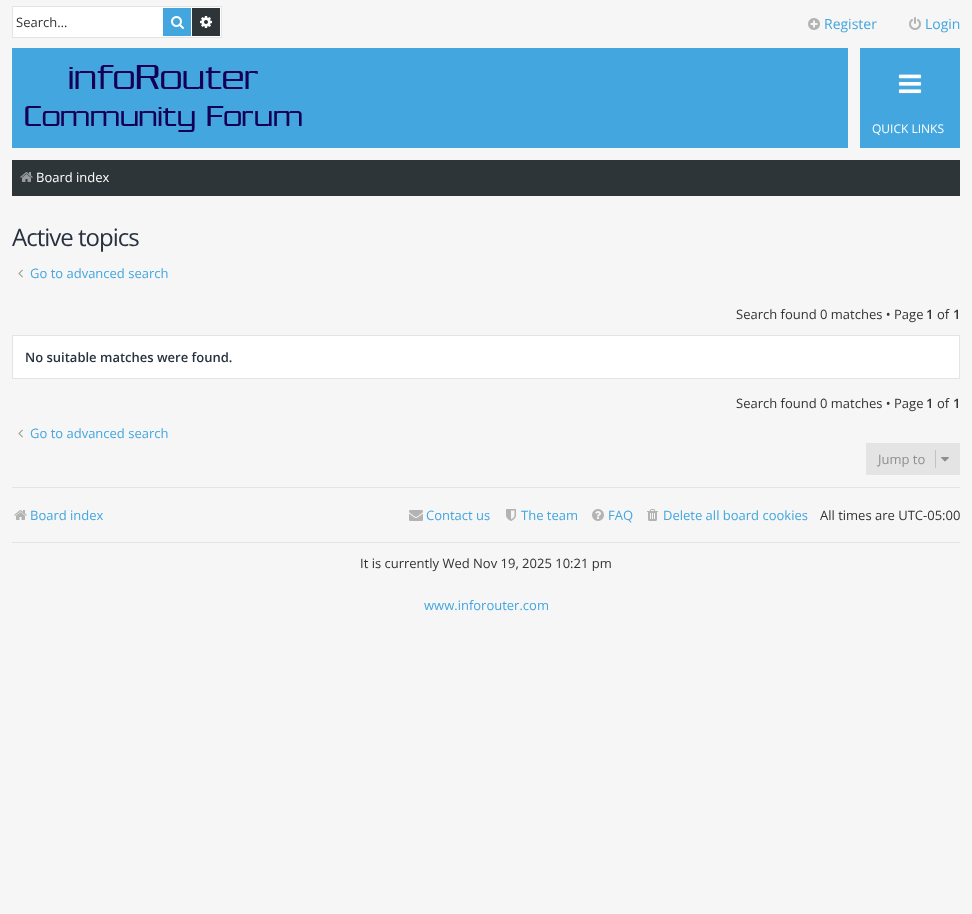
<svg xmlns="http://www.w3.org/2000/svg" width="972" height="914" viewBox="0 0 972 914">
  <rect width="100%" height="100%" fill="#f6f6f6"/>
  <rect x="12.5" y="6.5" width="209" height="31" fill="#ffffff" stroke="#e4e4e4"/>
  <text x="16" y="27" font-family="Open Sans" font-size="13" fill="#333333">Search…</text>
  <rect x="163" y="8" width="28" height="28" fill="#43a6df"/>
  <image x="171" y="16" width="13" height="13" href="img1.png"/>
  <rect x="192" y="8" width="28" height="28" fill="#2e3539"/>
  <image x="200" y="16" width="12" height="12" href="img2.png"/>
  <image x="808" y="18" width="12" height="12" href="img3.png"/>
  <text x="824" y="29" font-family="Open Sans" font-size="14" fill="#43a6df">Register</text>
  <image x="909" y="17" width="12" height="13" href="img4.png"/>
  <text x="925" y="29" font-family="Open Sans" font-size="14" fill="#43a6df">Login</text>
  <rect x="12" y="48" width="948" height="100" fill="#43a6df"/>
  <image x="25" y="65" width="277" height="67" href="img5.png"/>
  <rect x="848" y="48" width="12" height="100" fill="#f6f6f6"/>
  <image x="898" y="74" width="24" height="20" href="img6.png"/>
  <text x="872" y="133" font-family="Open Sans" font-size="12" fill="#ffffff">QUICK LINKS</text>
  <rect x="12" y="160" width="948" height="36" fill="#2e3539"/>
  <image x="20" y="172" width="13" height="10" href="img7.png"/>
  <text x="36" y="182" font-family="Open Sans" font-size="13" fill="#ffffff">Board index</text>
  <text x="12" y="246" font-family="Open Sans" font-size="24" letter-spacing="-1" fill="#28313f">Active topics</text>
  <image x="18" y="269" width="5" height="9" href="img8.png"/>
  <text x="30" y="278" font-family="Open Sans" font-size="13" fill="#43a6df">Go to advanced search</text>
  <text x="736" y="319" font-family="Open Sans" font-size="13" fill="#333333">Search found 0 matches • Page</text>
  <text x="926" y="319" font-family="Open Sans" font-size="13" font-weight="600" fill="#333333">1</text>
  <text x="937" y="319" font-family="Open Sans" font-size="13" fill="#333333">of</text>
  <text x="953" y="319" font-family="Open Sans" font-size="13" font-weight="600" fill="#333333">1</text>
  <rect x="12.5" y="335.5" width="947" height="43" fill="#ffffff" stroke="#e4e4e4"/>
  <text x="25" y="362" font-family="Open Sans" font-size="13" font-weight="600" fill="#28313f">No suitable matches were found.</text>
  <text x="736" y="408" font-family="Open Sans" font-size="13" fill="#333333">Search found 0 matches • Page</text>
  <text x="926" y="408" font-family="Open Sans" font-size="13" font-weight="600" fill="#333333">1</text>
  <text x="937" y="408" font-family="Open Sans" font-size="13" fill="#333333">of</text>
  <text x="953" y="408" font-family="Open Sans" font-size="13" font-weight="600" fill="#333333">1</text>
  <image x="18" y="429" width="5" height="9" href="img8.png"/>
  <text x="30" y="438" font-family="Open Sans" font-size="13" fill="#43a6df">Go to advanced search</text>
  <rect x="866" y="443" width="94" height="32" fill="#e4e4e4"/>
  <text x="878" y="464" font-family="Open Sans" font-size="13" fill="#8f8f8f">Jump to</text>
  <rect x="935" y="450" width="1" height="18" fill="#c2c2c2"/>
  <image x="941" y="457" width="8" height="5" href="img9.png"/>
  <rect x="12" y="487" width="948" height="1" fill="#e4e4e4"/>
  <rect x="12" y="542" width="948" height="1" fill="#e4e4e4"/>
  <image x="14" y="510" width="13" height="10" href="img10.png"/>
  <text x="30" y="520" font-family="Open Sans" font-size="13" fill="#43a6df">Board index</text>
  <image x="409" y="510" width="14" height="11" href="img11.png"/>
  <text x="426" y="520" font-family="Open Sans" font-size="13" fill="#43a6df">Contact us</text>
  <image x="506" y="509" width="10" height="12" href="img12.png"/>
  <text x="521" y="520" font-family="Open Sans" font-size="13" fill="#43a6df">The team</text>
  <image x="592" y="509" width="12" height="12" href="img13.png"/>
  <text x="608" y="520" font-family="Open Sans" font-size="13" fill="#43a6df">FAQ</text>
  <image x="647" y="509" width="11" height="12" href="img14.png"/>
  <text x="663" y="520" font-family="Open Sans" font-size="13" fill="#43a6df">Delete all board cookies</text>
  <text x="820" y="520" font-family="Open Sans" font-size="13" fill="#333333">All times are UTC-05:00</text>
  <text x="360" y="568" font-family="Open Sans" font-size="13" fill="#333333">It is currently Wed Nov 19, 2025 10:21 pm</text>
  <text x="424" y="610" font-family="Open Sans" font-size="13" fill="#43a6df">www.inforouter.com</text>
</svg>
